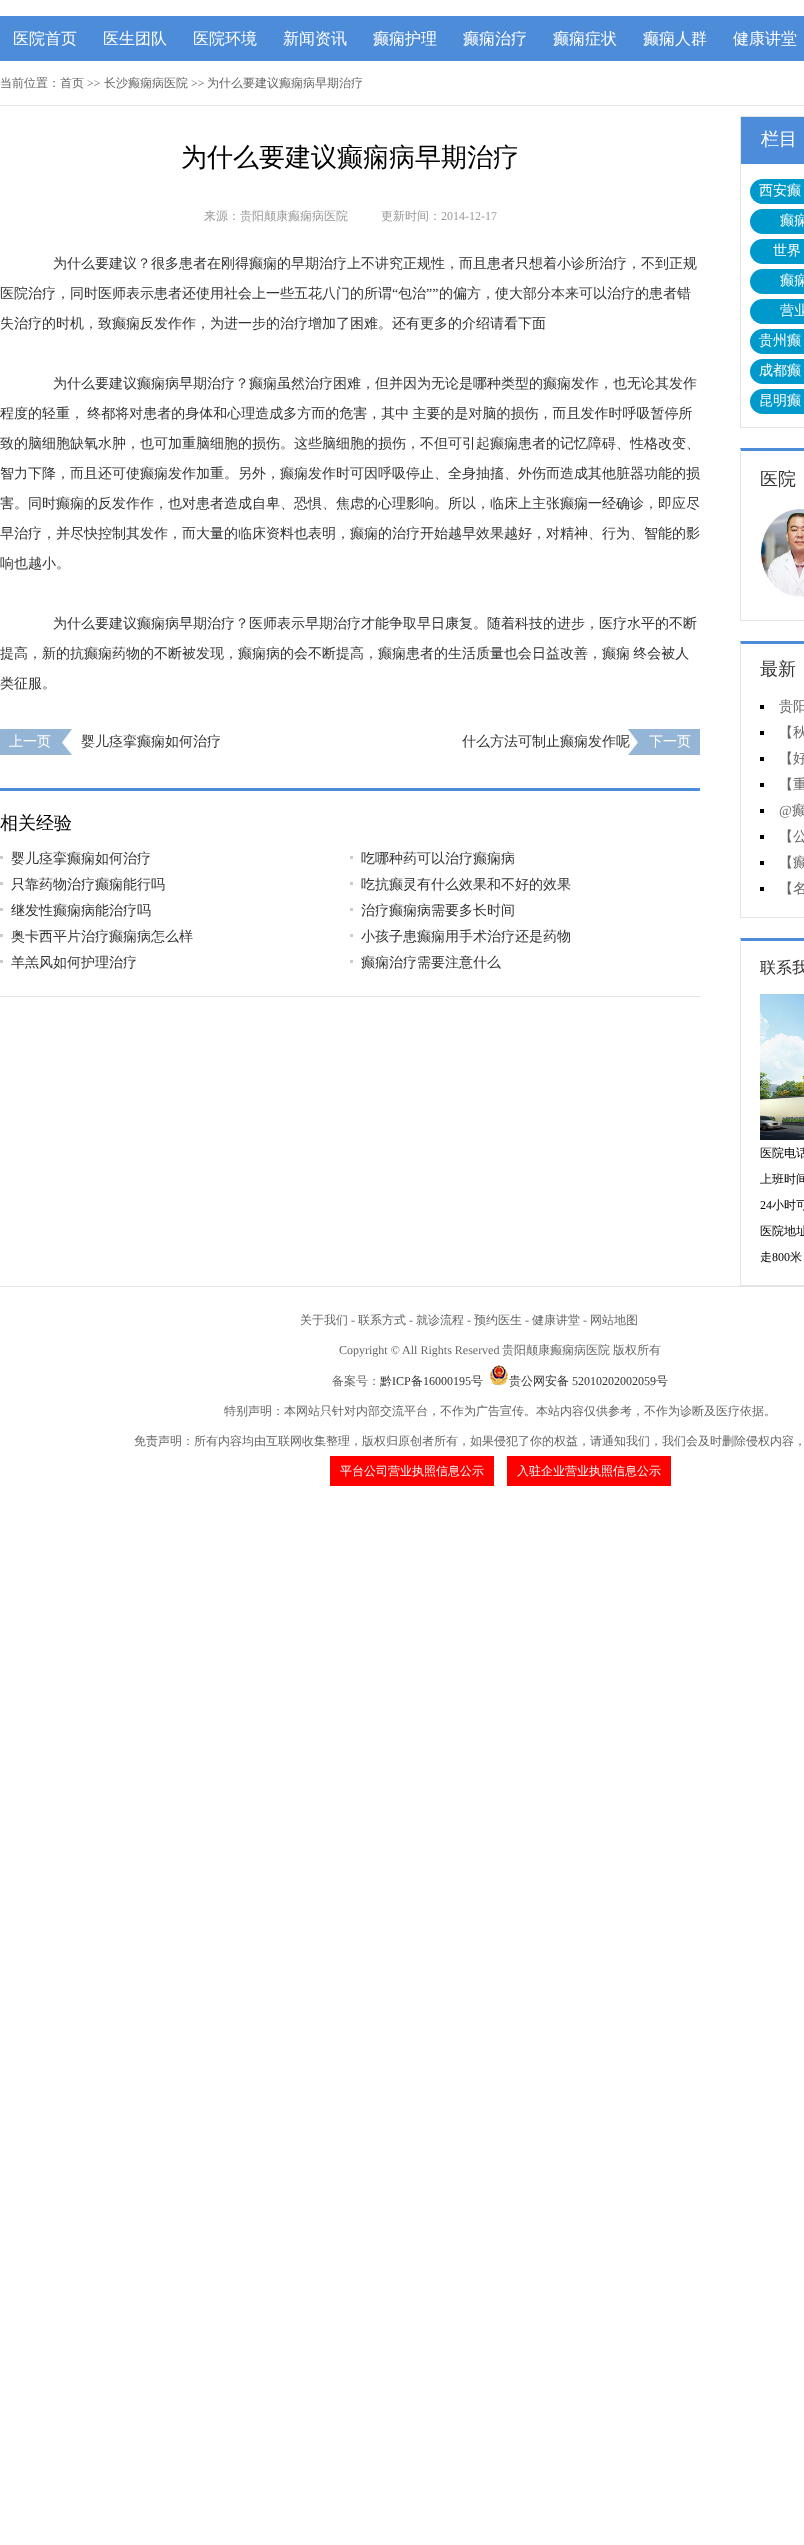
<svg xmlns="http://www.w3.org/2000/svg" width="804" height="2545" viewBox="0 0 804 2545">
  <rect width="100%" height="100%" fill="#ffffff"/>
  <rect x="0" y="16" width="804" height="45" fill="#4c8cd9"/>
  <text x="13" y="44" font-family="WenQuanYi Zen Hei" font-size="16" font-weight="500" fill="#ffffff">医院首页</text>
  <text x="103" y="44" font-family="WenQuanYi Zen Hei" font-size="16" font-weight="500" fill="#ffffff">医生团队</text>
  <text x="193" y="44" font-family="WenQuanYi Zen Hei" font-size="16" font-weight="500" fill="#ffffff">医院环境</text>
  <text x="283" y="44" font-family="WenQuanYi Zen Hei" font-size="16" font-weight="500" fill="#ffffff">新闻资讯</text>
  <text x="373" y="44" font-family="WenQuanYi Zen Hei" font-size="16" font-weight="500" fill="#ffffff">癫痫护理</text>
  <text x="463" y="44" font-family="WenQuanYi Zen Hei" font-size="16" font-weight="500" fill="#ffffff">癫痫治疗</text>
  <text x="553" y="44" font-family="WenQuanYi Zen Hei" font-size="16" font-weight="500" fill="#ffffff">癫痫症状</text>
  <text x="643" y="44" font-family="WenQuanYi Zen Hei" font-size="16" font-weight="500" fill="#ffffff">癫痫人群</text>
  <text x="733" y="44" font-family="WenQuanYi Zen Hei" font-size="16" font-weight="500" fill="#ffffff">健康讲堂</text>
  <rect x="0" y="105" width="804" height="1" fill="#e4e4e4"/>
  <text x="0" y="87" font-family="WenQuanYi Zen Hei" font-size="12" font-weight="500" fill="#666666">当前位置：首页</text>
  <text x="87" y="87" font-family="Liberation Serif" font-size="12" fill="#666666">&gt;&gt;</text>
  <text x="104" y="87" font-family="WenQuanYi Zen Hei" font-size="12" font-weight="500" fill="#666666">长沙癫痫病医院</text>
  <text x="191" y="87" font-family="Liberation Serif" font-size="12" fill="#666666">&gt;&gt;</text>
  <text x="207" y="87" font-family="WenQuanYi Zen Hei" font-size="12" font-weight="500" fill="#666666">为什么要建议癫痫病早期治疗</text>
  <rect x="0" y="788" width="700" height="3" fill="#4c8cd9"/>
  <text x="181" y="166" font-family="WenQuanYi Zen Hei" font-size="26" font-weight="500" fill="#000000">为什么要建议癫痫病早期治疗</text>
  <text x="204" y="220" font-family="WenQuanYi Zen Hei" font-size="12" font-weight="500" fill="#999999">来源：贵阳颠康癫痫病医院</text>
  <text x="381" y="220" font-family="WenQuanYi Zen Hei" font-size="12" font-weight="500" fill="#999999">更新时间：</text>
  <text x="441" y="220" font-family="Liberation Serif" font-size="12" fill="#999999">2014-12-17</text>
  <text x="53" y="268" font-family="WenQuanYi Zen Hei" font-size="14" font-weight="500" fill="#333333">为什么要建议？很多患者在刚得癫痫的早期治疗上不讲究正规性，而且患者只想着小诊所治疗，不到正规</text>
  <text x="0" y="298" font-family="WenQuanYi Zen Hei" font-size="14" font-weight="500" fill="#333333">医院治疗，同时医师表示患者还使用社会上一些五花八门的所谓</text>
  <text x="392" y="298" font-family="Liberation Serif" font-size="14" fill="#333333">“</text>
  <text x="398" y="298" font-family="WenQuanYi Zen Hei" font-size="14" font-weight="500" fill="#333333">包治</text>
  <text x="426" y="298" font-family="Liberation Serif" font-size="14" fill="#333333">””</text>
  <text x="439" y="298" font-family="WenQuanYi Zen Hei" font-size="14" font-weight="500" fill="#333333">的偏方，使大部分本来可以治疗的患者错</text>
  <text x="0" y="328" font-family="WenQuanYi Zen Hei" font-size="14" font-weight="500" fill="#333333">失治疗的时机，致癫痫反发作作，为进一步的治疗增加了困难。还有更多的介绍请看下面</text>
  <text x="53" y="388" font-family="WenQuanYi Zen Hei" font-size="14" font-weight="500" fill="#333333">为什么要建议癫痫病早期治疗？癫痫虽然治疗困难，但并因为无论是哪种类型的癫痫发作，也无论其发作</text>
  <text x="0" y="418" word-spacing="-1" font-family="WenQuanYi Zen Hei" font-size="14" font-weight="500" fill="#333333">程度的轻重， 终都将对患者的身体和心理造成多方而的危害，其中 主要的是对脑的损伤，而且发作时呼吸暂停所</text>
  <text x="0" y="448" font-family="WenQuanYi Zen Hei" font-size="14" font-weight="500" fill="#333333">致的脑细胞缺氧水肿，也可加重脑细胞的损伤。这些脑细胞的损伤，不但可引起癫痫患者的记忆障碍、性格改变、</text>
  <text x="0" y="478" font-family="WenQuanYi Zen Hei" font-size="14" font-weight="500" fill="#333333">智力下降，而且还可使癫痫发作加重。另外，癫痫发作时可因呼吸停止、全身抽搐、外伤而造成其他脏器功能的损</text>
  <text x="0" y="508" font-family="WenQuanYi Zen Hei" font-size="14" font-weight="500" fill="#333333">害。同时癫痫的反发作作，也对患者造成自卑、恐惧、焦虑的心理影响。所以，临床上主张癫痫一经确诊，即应尽</text>
  <text x="0" y="538" font-family="WenQuanYi Zen Hei" font-size="14" font-weight="500" fill="#333333">早治疗，并尽快控制其发作，而大量的临床资料也表明，癫痫的治疗开始越早效果越好，对精神、行为、智能的影</text>
  <text x="0" y="568" font-family="WenQuanYi Zen Hei" font-size="14" font-weight="500" fill="#333333">响也越小。</text>
  <text x="53" y="628" font-family="WenQuanYi Zen Hei" font-size="14" font-weight="500" fill="#333333">为什么要建议癫痫病早期治疗？医师表示早期治疗才能争取早日康复。随着科技的进步，医疗水平的不断</text>
  <text x="0" y="658" word-spacing="-1" font-family="WenQuanYi Zen Hei" font-size="14" font-weight="500" fill="#333333">提高，新的抗癫痫药物的不断被发现，癫痫病的会不断提高，癫痫患者的生活质量也会日益改善，癫痫 终会被人</text>
  <text x="0" y="688" font-family="WenQuanYi Zen Hei" font-size="14" font-weight="500" fill="#333333">类征服。</text>
  <image x="0" y="729" width="72" height="26" href="img1.png"/>
  <text x="9" y="746" font-family="WenQuanYi Zen Hei" font-size="14" font-weight="500" fill="#ffffff">上一页</text>
  <text x="81" y="746" font-family="WenQuanYi Zen Hei" font-size="14" font-weight="500" fill="#333333">婴儿痉挛癫痫如何治疗</text>
  <image x="628" y="729" width="72" height="26" href="img2.png"/>
  <text x="462" y="746" font-family="WenQuanYi Zen Hei" font-size="14" font-weight="500" fill="#333333">什么方法可制止癫痫发作呢</text>
  <text x="649" y="746" font-family="WenQuanYi Zen Hei" font-size="14" font-weight="500" fill="#ffffff">下一页</text>
  <rect x="0" y="996" width="700" height="1" fill="#e4e4e4"/>
  <text x="0" y="829" font-family="WenQuanYi Zen Hei" font-size="18" font-weight="500" fill="#000000">相关经验</text>
  <rect x="0" y="856" width="3" height="3" fill="#cccccc"/>
  <text x="11" y="863" font-family="WenQuanYi Zen Hei" font-size="14" font-weight="500" fill="#333333">婴儿痉挛癫痫如何治疗</text>
  <rect x="350" y="856" width="3" height="3" fill="#cccccc"/>
  <text x="361" y="863" font-family="WenQuanYi Zen Hei" font-size="14" font-weight="500" fill="#333333">吃哪种药可以治疗癫痫病</text>
  <rect x="0" y="882" width="3" height="3" fill="#cccccc"/>
  <text x="11" y="889" font-family="WenQuanYi Zen Hei" font-size="14" font-weight="500" fill="#333333">只靠药物治疗癫痫能行吗</text>
  <rect x="350" y="882" width="3" height="3" fill="#cccccc"/>
  <text x="361" y="889" font-family="WenQuanYi Zen Hei" font-size="14" font-weight="500" fill="#333333">吃抗癫灵有什么效果和不好的效果</text>
  <rect x="0" y="908" width="3" height="3" fill="#cccccc"/>
  <text x="11" y="915" font-family="WenQuanYi Zen Hei" font-size="14" font-weight="500" fill="#333333">继发性癫痫病能治疗吗</text>
  <rect x="350" y="908" width="3" height="3" fill="#cccccc"/>
  <text x="361" y="915" font-family="WenQuanYi Zen Hei" font-size="14" font-weight="500" fill="#333333">治疗癫痫病需要多长时间</text>
  <rect x="0" y="934" width="3" height="3" fill="#cccccc"/>
  <text x="11" y="941" font-family="WenQuanYi Zen Hei" font-size="14" font-weight="500" fill="#333333">奥卡西平片治疗癫痫病怎么样</text>
  <rect x="350" y="934" width="3" height="3" fill="#cccccc"/>
  <text x="361" y="941" font-family="WenQuanYi Zen Hei" font-size="14" font-weight="500" fill="#333333">小孩子患癫痫用手术治疗还是药物</text>
  <rect x="0" y="960" width="3" height="3" fill="#cccccc"/>
  <text x="11" y="967" font-family="WenQuanYi Zen Hei" font-size="14" font-weight="500" fill="#333333">羊羔风如何护理治疗</text>
  <rect x="350" y="960" width="3" height="3" fill="#cccccc"/>
  <text x="361" y="967" font-family="WenQuanYi Zen Hei" font-size="14" font-weight="500" fill="#333333">癫痫治疗需要注意什么</text>
  <rect x="740.5" y="116.5" width="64" height="311" fill="none" stroke="#e4e4e4"/>
  <rect x="741" y="117" width="63" height="47" fill="#4c8cd9"/>
  <text x="761" y="145" font-family="WenQuanYi Zen Hei" font-size="18" font-weight="500" fill="#ffffff">栏目</text>
  <rect x="750" y="179" width="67" height="25" rx="12.5" fill="#0099cc"/>
  <text x="759" y="195" font-family="WenQuanYi Zen Hei" font-size="14" font-weight="500" fill="#ffffff">西安癫</text>
  <rect x="750" y="209" width="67" height="25" rx="12.5" fill="#0099cc"/>
  <text x="780" y="225" font-family="WenQuanYi Zen Hei" font-size="14" font-weight="500" fill="#ffffff">癫痫</text>
  <rect x="750" y="239" width="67" height="25" rx="12.5" fill="#0099cc"/>
  <text x="773" y="255" font-family="WenQuanYi Zen Hei" font-size="14" font-weight="500" fill="#ffffff">世界</text>
  <rect x="750" y="269" width="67" height="25" rx="12.5" fill="#0099cc"/>
  <text x="780" y="285" font-family="WenQuanYi Zen Hei" font-size="14" font-weight="500" fill="#ffffff">癫痫</text>
  <rect x="750" y="299" width="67" height="25" rx="12.5" fill="#0099cc"/>
  <text x="780" y="315" font-family="WenQuanYi Zen Hei" font-size="14" font-weight="500" fill="#ffffff">营业</text>
  <rect x="750" y="329" width="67" height="25" rx="12.5" fill="#0099cc"/>
  <text x="759" y="345" font-family="WenQuanYi Zen Hei" font-size="14" font-weight="500" fill="#ffffff">贵州癫</text>
  <rect x="750" y="359" width="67" height="25" rx="12.5" fill="#0099cc"/>
  <text x="759" y="375" font-family="WenQuanYi Zen Hei" font-size="14" font-weight="500" fill="#ffffff">成都癫</text>
  <rect x="750" y="389" width="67" height="25" rx="12.5" fill="#0099cc"/>
  <text x="759" y="405" font-family="WenQuanYi Zen Hei" font-size="14" font-weight="500" fill="#ffffff">昆明癫</text>
  <path d="M740 448H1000L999 451H741Z" fill="#4c8cd9"/>
  <rect x="740" y="620" width="64" height="1" fill="#e4e4e4"/>
  <path d="M740 621V448L741 451V620Z" fill="#e4e4e4"/>
  <text x="760" y="485" font-family="WenQuanYi Zen Hei" font-size="18" font-weight="500" fill="#333333">医院</text>
  <image x="760" y="508" width="44" height="89" href="img3.png"/>
  <path d="M740 641H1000L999 644H741Z" fill="#4c8cd9"/>
  <rect x="740" y="917" width="64" height="1" fill="#e4e4e4"/>
  <path d="M740 918V641L741 644V917Z" fill="#e4e4e4"/>
  <text x="760" y="675" font-family="WenQuanYi Zen Hei" font-size="18" font-weight="500" fill="#333333">最新</text>
  <rect x="760" y="705" width="4" height="4" fill="#000000"/>
  <text x="779" y="711" font-family="WenQuanYi Zen Hei" font-size="14" font-weight="500" fill="#666666">贵阳</text>
  <rect x="760" y="731" width="4" height="4" fill="#000000"/>
  <text x="779" y="737" font-family="WenQuanYi Zen Hei" font-size="14" font-weight="500" fill="#666666">【秋</text>
  <rect x="760" y="757" width="4" height="4" fill="#000000"/>
  <text x="779" y="763" font-family="WenQuanYi Zen Hei" font-size="14" font-weight="500" fill="#666666">【好</text>
  <rect x="760" y="783" width="4" height="4" fill="#000000"/>
  <text x="779" y="789" font-family="WenQuanYi Zen Hei" font-size="14" font-weight="500" fill="#666666">【重</text>
  <rect x="760" y="809" width="4" height="4" fill="#000000"/>
  <text x="779" y="815" font-family="Liberation Serif" font-size="14" fill="#666666">@</text>
  <text x="792" y="815" font-family="WenQuanYi Zen Hei" font-size="14" font-weight="500" fill="#666666">癫</text>
  <rect x="760" y="835" width="4" height="4" fill="#000000"/>
  <text x="779" y="841" font-family="WenQuanYi Zen Hei" font-size="14" font-weight="500" fill="#666666">【公</text>
  <rect x="760" y="861" width="4" height="4" fill="#000000"/>
  <text x="779" y="867" font-family="WenQuanYi Zen Hei" font-size="14" font-weight="500" fill="#666666">【癫</text>
  <rect x="760" y="887" width="4" height="4" fill="#000000"/>
  <text x="779" y="893" font-family="WenQuanYi Zen Hei" font-size="14" font-weight="500" fill="#666666">【名</text>
  <path d="M740 938H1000L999 941H741Z" fill="#4c8cd9"/>
  <rect x="740" y="1285" width="64" height="1" fill="#e4e4e4"/>
  <path d="M740 1286V938L741 941V1285Z" fill="#e4e4e4"/>
  <text x="760" y="973" font-family="WenQuanYi Zen Hei" font-size="16" font-weight="500" fill="#333333">联系我</text>
  <image x="760" y="994" width="44" height="146" href="img4.png"/>
  <text x="760" y="1157" font-family="WenQuanYi Zen Hei" font-size="12" font-weight="500" fill="#000000">医院电话</text>
  <text x="760" y="1183" font-family="WenQuanYi Zen Hei" font-size="12" font-weight="500" fill="#000000">上班时间</text>
  <text x="760" y="1209" font-family="Liberation Serif" font-size="12" fill="#000000">24</text>
  <text x="772" y="1209" font-family="WenQuanYi Zen Hei" font-size="12" font-weight="500" fill="#000000">小时可</text>
  <text x="760" y="1235" font-family="WenQuanYi Zen Hei" font-size="12" font-weight="500" fill="#000000">医院地址</text>
  <text x="760" y="1261" font-family="WenQuanYi Zen Hei" font-size="12" font-weight="500" fill="#000000">走</text>
  <text x="772" y="1261" font-family="Liberation Serif" font-size="12" fill="#000000">800</text>
  <text x="790" y="1261" font-family="WenQuanYi Zen Hei" font-size="12" font-weight="500" fill="#000000">米</text>
  <rect x="0" y="1286" width="804" height="1" fill="#e4e4e4"/>
  <text x="300" y="1324" font-family="WenQuanYi Zen Hei" font-size="12" font-weight="500" fill="#666666">关于我们</text>
  <text x="351" y="1324" font-family="Liberation Serif" font-size="12" fill="#666666">-</text>
  <text x="358" y="1324" font-family="WenQuanYi Zen Hei" font-size="12" font-weight="500" fill="#666666">联系方式</text>
  <text x="409" y="1324" font-family="Liberation Serif" font-size="12" fill="#666666">-</text>
  <text x="416" y="1324" font-family="WenQuanYi Zen Hei" font-size="12" font-weight="500" fill="#666666">就诊流程</text>
  <text x="467" y="1324" font-family="Liberation Serif" font-size="12" fill="#666666">-</text>
  <text x="474" y="1324" font-family="WenQuanYi Zen Hei" font-size="12" font-weight="500" fill="#666666">预约医生</text>
  <text x="525" y="1324" font-family="Liberation Serif" font-size="12" fill="#666666">-</text>
  <text x="532" y="1324" font-family="WenQuanYi Zen Hei" font-size="12" font-weight="500" fill="#666666">健康讲堂</text>
  <text x="583" y="1324" font-family="Liberation Serif" font-size="12" fill="#666666">-</text>
  <text x="590" y="1324" font-family="WenQuanYi Zen Hei" font-size="12" font-weight="500" fill="#666666">网站地图</text>
  <text x="339" y="1354" font-family="Liberation Serif" font-size="12" fill="#666666">Copyright © All Rights Reserved</text>
  <text x="502" y="1354" font-family="WenQuanYi Zen Hei" font-size="12" font-weight="500" fill="#666666">贵阳颠康癫痫病医院</text>
  <text x="613" y="1354" font-family="WenQuanYi Zen Hei" font-size="12" font-weight="500" fill="#666666">版权所有</text>
  <text x="332" y="1385" font-family="WenQuanYi Zen Hei" font-size="12" font-weight="500" fill="#666666">备案号：</text>
  <text x="380" y="1385" font-family="WenQuanYi Zen Hei" font-size="12" font-weight="500" fill="#333333">黔</text>
  <text x="392" y="1385" font-family="Liberation Serif" font-size="12" fill="#333333">ICP</text>
  <text x="411" y="1385" font-family="WenQuanYi Zen Hei" font-size="12" font-weight="500" fill="#333333">备</text>
  <text x="423" y="1385" font-family="Liberation Serif" font-size="12" fill="#333333">16000195</text>
  <text x="471" y="1385" font-family="WenQuanYi Zen Hei" font-size="12" font-weight="500" fill="#333333">号</text>
  <image x="490" y="1365" width="18" height="20" href="img5.png"/>
  <text x="509" y="1385" font-family="WenQuanYi Zen Hei" font-size="12" font-weight="500" fill="#333333">贵公网安备</text>
  <text x="572" y="1385" font-family="Liberation Serif" font-size="12" fill="#333333">52010202002059</text>
  <text x="656" y="1385" font-family="WenQuanYi Zen Hei" font-size="12" font-weight="500" fill="#333333">号</text>
  <text x="224" y="1415" font-family="WenQuanYi Zen Hei" font-size="12" font-weight="500" fill="#666666">特别声明：本网站只针对内部交流平台，不作为广告宣传。本站内容仅供参考，不作为诊断及医疗依据。</text>
  <text x="134" y="1445" font-family="WenQuanYi Zen Hei" font-size="12" font-weight="500" fill="#666666">免责声明：所有内容均由互联网收集整理，版权归原创者所有，如果侵犯了你的权益，请通知我们，我们会及时删除侵权内容，</text>
  <rect x="330" y="1456" width="164" height="30" fill="#ff0000"/>
  <text x="340" y="1475" font-family="WenQuanYi Zen Hei" font-size="12" font-weight="500" fill="#ffffff">平台公司营业执照信息公示</text>
  <rect x="507" y="1456" width="164" height="30" fill="#ff0000"/>
  <text x="517" y="1475" font-family="WenQuanYi Zen Hei" font-size="12" font-weight="500" fill="#ffffff">入驻企业营业执照信息公示</text>
</svg>
